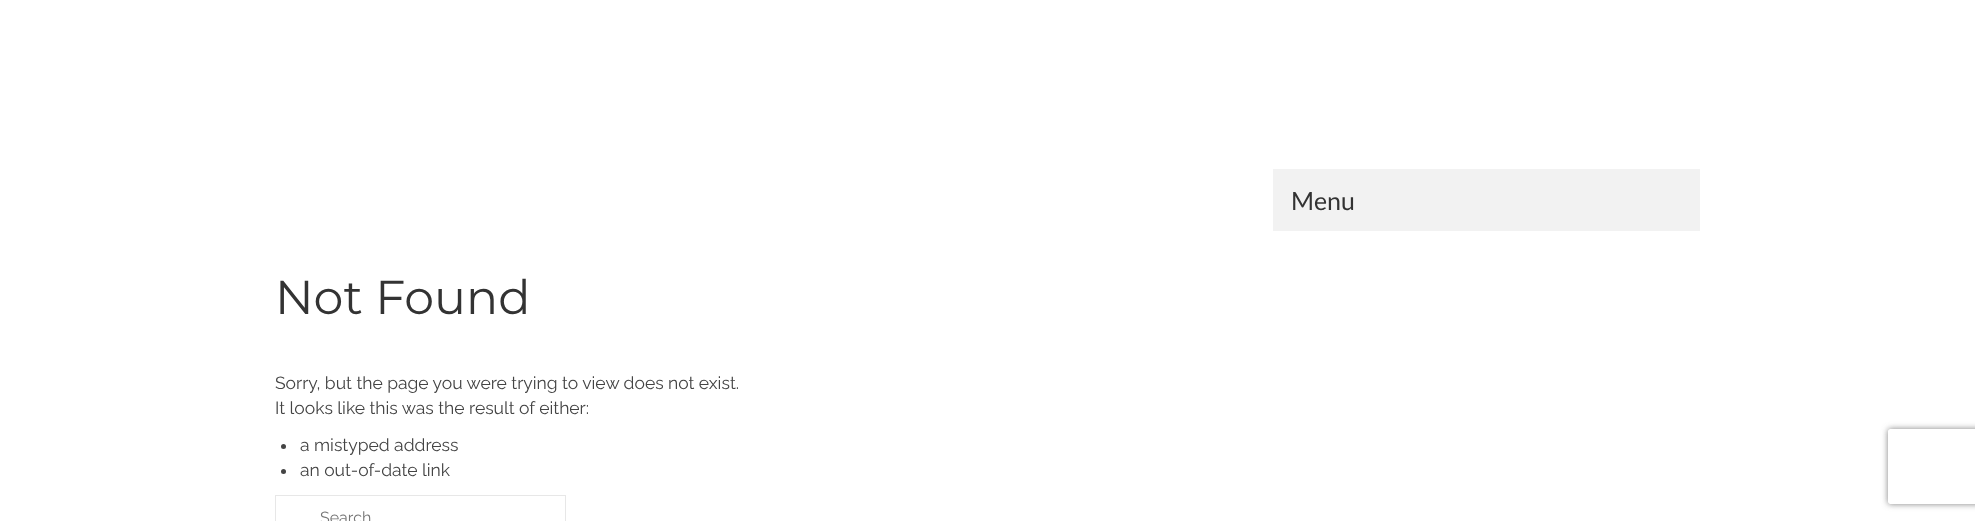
<svg xmlns="http://www.w3.org/2000/svg" width="1975" height="521" viewBox="0 0 1975 521">
  <defs>
    <clipPath id="clip1"><path d="M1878 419H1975V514H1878ZM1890.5 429H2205.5C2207 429 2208 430 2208 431.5V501.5C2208 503 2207 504 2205.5 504H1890.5C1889 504 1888 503 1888 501.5V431.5C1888 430 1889 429 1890.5 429Z" clip-rule="evenodd"/></clipPath>
    <filter id="blur1" x="-50%" y="-200%" width="200%" height="500%"><feGaussianBlur stdDeviation="3"/></filter>
  </defs>
  <rect width="100%" height="100%" fill="#ffffff"/>
  <rect x="1273" y="169" width="427" height="62" fill="#f2f2f2"/>
  <text x="1291" y="210" font-family="Lato" font-size="25" fill="#333333">Menu</text>
  <text x="275" y="314" font-family="Montserrat" font-size="47.5" font-weight="100" fill="#333333">Not Found</text>
  <text x="275" y="389" font-family="Raleway" font-size="17.5" fill="#444444">Sorry, but the page you were trying to view does not exist.</text>
  <text x="275" y="414" font-family="Raleway" font-size="17.5" fill="#444444">It looks like this was the result of either:</text>
  <circle cx="283.5" cy="446.5" r="2.5" fill="#444444"/>
  <text x="300" y="451" font-family="Raleway" font-size="17.5" fill="#444444">a mistyped address</text>
  <circle cx="283.5" cy="471.5" r="2.5" fill="#444444"/>
  <text x="300" y="476" font-family="Raleway" font-size="17.5" fill="#444444">an out-of-date link</text>
  <rect x="275.5" y="495.5" width="290" height="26" fill="none" stroke="#e7e7e7"/>
  <text x="320" y="523" font-family="Raleway" font-size="16" fill="#757575">Search</text>
  <g clip-path="url(#clip1)">
    <rect x="1888" y="429" width="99" height="75" rx="2.5" fill="#808080" filter="url(#blur1)"/>
  </g>
</svg>
